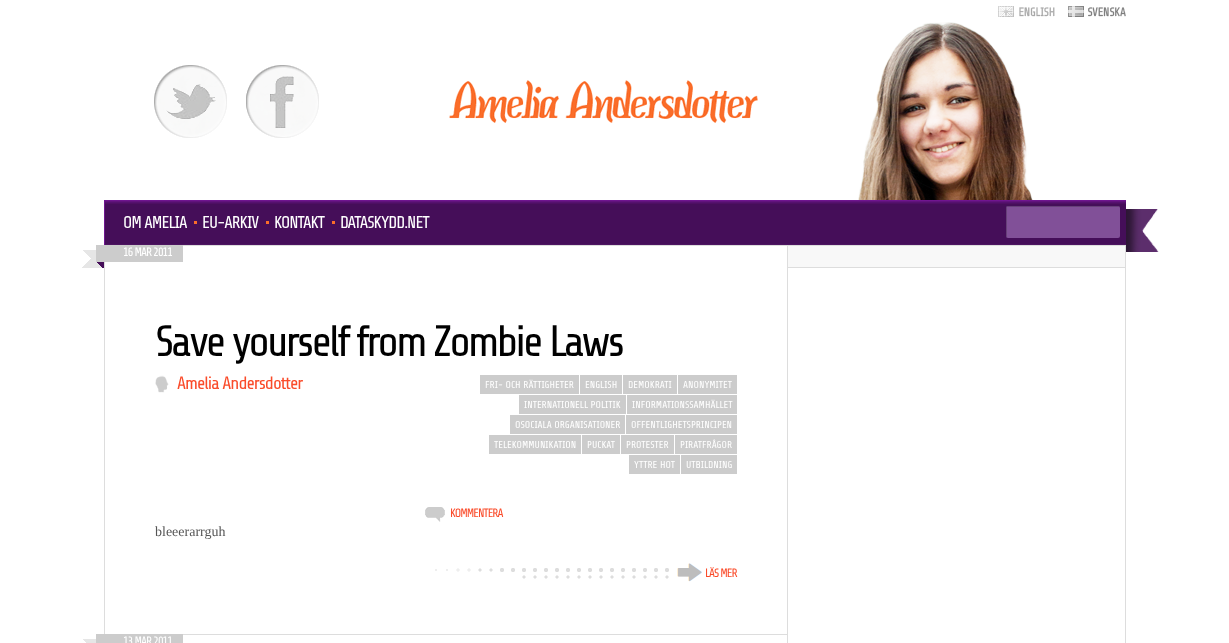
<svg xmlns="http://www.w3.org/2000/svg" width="1229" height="643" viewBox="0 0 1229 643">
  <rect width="100%" height="100%" fill="#ffffff"/>
  <image x="998" y="6" width="57" height="11" href="img1.png"/>
  <image x="1068" y="6" width="58" height="11" href="img2.png"/>
  <image x="154" y="65" width="73" height="73" href="img3.png"/>
  <image x="246" y="65" width="73" height="73" href="img4.png"/>
  <image x="449" y="80" width="309" height="43" href="img5.png"/>
  <image x="858" y="22" width="175" height="178" href="img6.png"/>
  <rect x="105" y="204" width="1021" height="40" fill="#450e59"/>
  <image x="105" y="200" width="1021" height="4" href="img7.png"/>
  <rect x="104" y="244" width="1022" height="1" fill="#4d1561"/>
  <rect x="104" y="200" width="1" height="45" fill="#701690"/>
  <text x="123" y="228" font-family="Share Tech" font-size="17" letter-spacing="-1" fill="#ffffff">OM AMELIA</text>
  <rect x="194" y="221" width="3" height="3" fill="#fa6d2a"/>
  <text x="202" y="228" font-family="Share Tech" font-size="17" letter-spacing="-1" fill="#ffffff">EU-ARKIV</text>
  <rect x="266" y="221" width="3" height="3" fill="#fa6d2a"/>
  <text x="274" y="228" font-family="Share Tech" font-size="17" letter-spacing="-1" fill="#ffffff">KONTAKT</text>
  <rect x="332" y="221" width="3" height="3" fill="#fa6d2a"/>
  <text x="340" y="228" font-family="Share Tech" font-size="17" letter-spacing="-1" fill="#ffffff">DATASKYDD.NET</text>
  <rect x="1006" y="206" width="114" height="32" rx="2" fill="#815098"/>
  <rect x="1007" y="206" width="112" height="1" fill="#674079"/>
  <rect x="1006" y="207" width="1" height="30" fill="#674079"/>
  <image x="1126" y="209" width="33" height="43" href="img8.png"/>
  <rect x="787" y="245" width="1" height="398" fill="#dddddd"/>
  <rect x="104" y="268" width="1" height="366" fill="#dddddd"/>
  <rect x="183" y="245" width="604" height="1" fill="#dddddd"/>
  <image x="82" y="245" width="23" height="23" href="img9.png"/>
  <rect x="105" y="245" width="78" height="17" fill="#cccccc"/>
  <text x="123" y="256" font-family="Share Tech" font-size="12" letter-spacing="-1" fill="#ffffff">16 MAR 2011</text>
  <rect x="183" y="634" width="604" height="1" fill="#dddddd"/>
  <text x="155" y="356" font-family="Share Tech" font-size="44" letter-spacing="-3" fill="#000000">Save yourself from Zombie Laws</text>
  <image x="155" y="375" width="14" height="18" href="img10.png"/>
  <text x="177" y="389" font-family="Share Tech" font-size="18" letter-spacing="-1" fill="#fa4b2a">Amelia Andersdotter</text>
  <rect x="480" y="375" width="99" height="19" fill="#cccccc"/>
  <text x="485" y="388" font-family="Share Tech" font-size="10" fill="#ffffff">FRI- OCH RÄTTIGHETER</text>
  <rect x="580" y="375" width="42" height="19" fill="#cccccc"/>
  <text x="585" y="388" font-family="Share Tech" font-size="10" fill="#ffffff">ENGLISH</text>
  <rect x="623" y="375" width="54" height="19" fill="#cccccc"/>
  <text x="628" y="388" font-family="Share Tech" font-size="10" fill="#ffffff">DEMOKRATI</text>
  <rect x="678" y="375" width="59" height="19" fill="#cccccc"/>
  <text x="683" y="388" font-family="Share Tech" font-size="10" fill="#ffffff">ANONYMITET</text>
  <rect x="519" y="395" width="107" height="19" fill="#cccccc"/>
  <text x="524" y="408" font-family="Share Tech" font-size="10" fill="#ffffff">INTERNATIONELL POLITIK</text>
  <rect x="627" y="395" width="110" height="19" fill="#cccccc"/>
  <text x="632" y="408" font-family="Share Tech" font-size="10" fill="#ffffff">INFORMATIONSSAMHÄLLET</text>
  <rect x="510" y="415" width="115" height="19" fill="#cccccc"/>
  <text x="515" y="428" font-family="Share Tech" font-size="10" fill="#ffffff">OSOCIALA ORGANISATIONER</text>
  <rect x="626" y="415" width="111" height="19" fill="#cccccc"/>
  <text x="631" y="428" font-family="Share Tech" font-size="10" fill="#ffffff">OFFENTLIGHETSPRINCIPEN</text>
  <rect x="489" y="435" width="92" height="19" fill="#cccccc"/>
  <text x="494" y="448" font-family="Share Tech" font-size="10" fill="#ffffff">TELEKOMMUNIKATION</text>
  <rect x="582" y="435" width="38" height="19" fill="#cccccc"/>
  <text x="587" y="448" font-family="Share Tech" font-size="10" fill="#ffffff">PUCKAT</text>
  <rect x="621" y="435" width="53" height="19" fill="#cccccc"/>
  <text x="626" y="448" font-family="Share Tech" font-size="10" fill="#ffffff">PROTESTER</text>
  <rect x="675" y="435" width="62" height="19" fill="#cccccc"/>
  <text x="680" y="448" font-family="Share Tech" font-size="10" fill="#ffffff">PIRATFRÅGOR</text>
  <rect x="629" y="455" width="51" height="19" fill="#cccccc"/>
  <text x="634" y="468" font-family="Share Tech" font-size="10" fill="#ffffff">YTTRE HOT</text>
  <rect x="681" y="455" width="56" height="19" fill="#cccccc"/>
  <text x="686" y="468" font-family="Share Tech" font-size="10" fill="#ffffff">UTBILDNING</text>
  <text x="155" y="536" font-family="Liberation Serif" font-size="14" fill="#555555">bleeerarrguh</text>
  <image x="425" y="507" width="20" height="15" href="img11.png"/>
  <text x="450" y="517" font-family="Share Tech" font-size="12" letter-spacing="-1" fill="#fa4b2a">KOMMENTERA</text>
  <image x="435" y="563" width="267" height="19" href="img12.png"/>
  <text x="705" y="577" font-family="Share Tech" font-size="12" letter-spacing="-1" fill="#fa4b2a">LÄS MER</text>
  <image x="83" y="634" width="22" height="9" href="img13.png"/>
  <rect x="105" y="634" width="78" height="9" fill="#cccccc"/>
  <text x="123" y="645" font-family="Share Tech" font-size="12" letter-spacing="-1" fill="#ffffff">13 MAR 2011</text>
  <rect x="788" y="245" width="338" height="1" fill="#dddddd"/>
  <rect x="1125" y="245" width="1" height="398" fill="#dddddd"/>
  <rect x="788" y="246" width="337" height="21" fill="#f8f8f8"/>
  <rect x="788" y="267" width="337" height="1" fill="#dddddd"/>
</svg>
